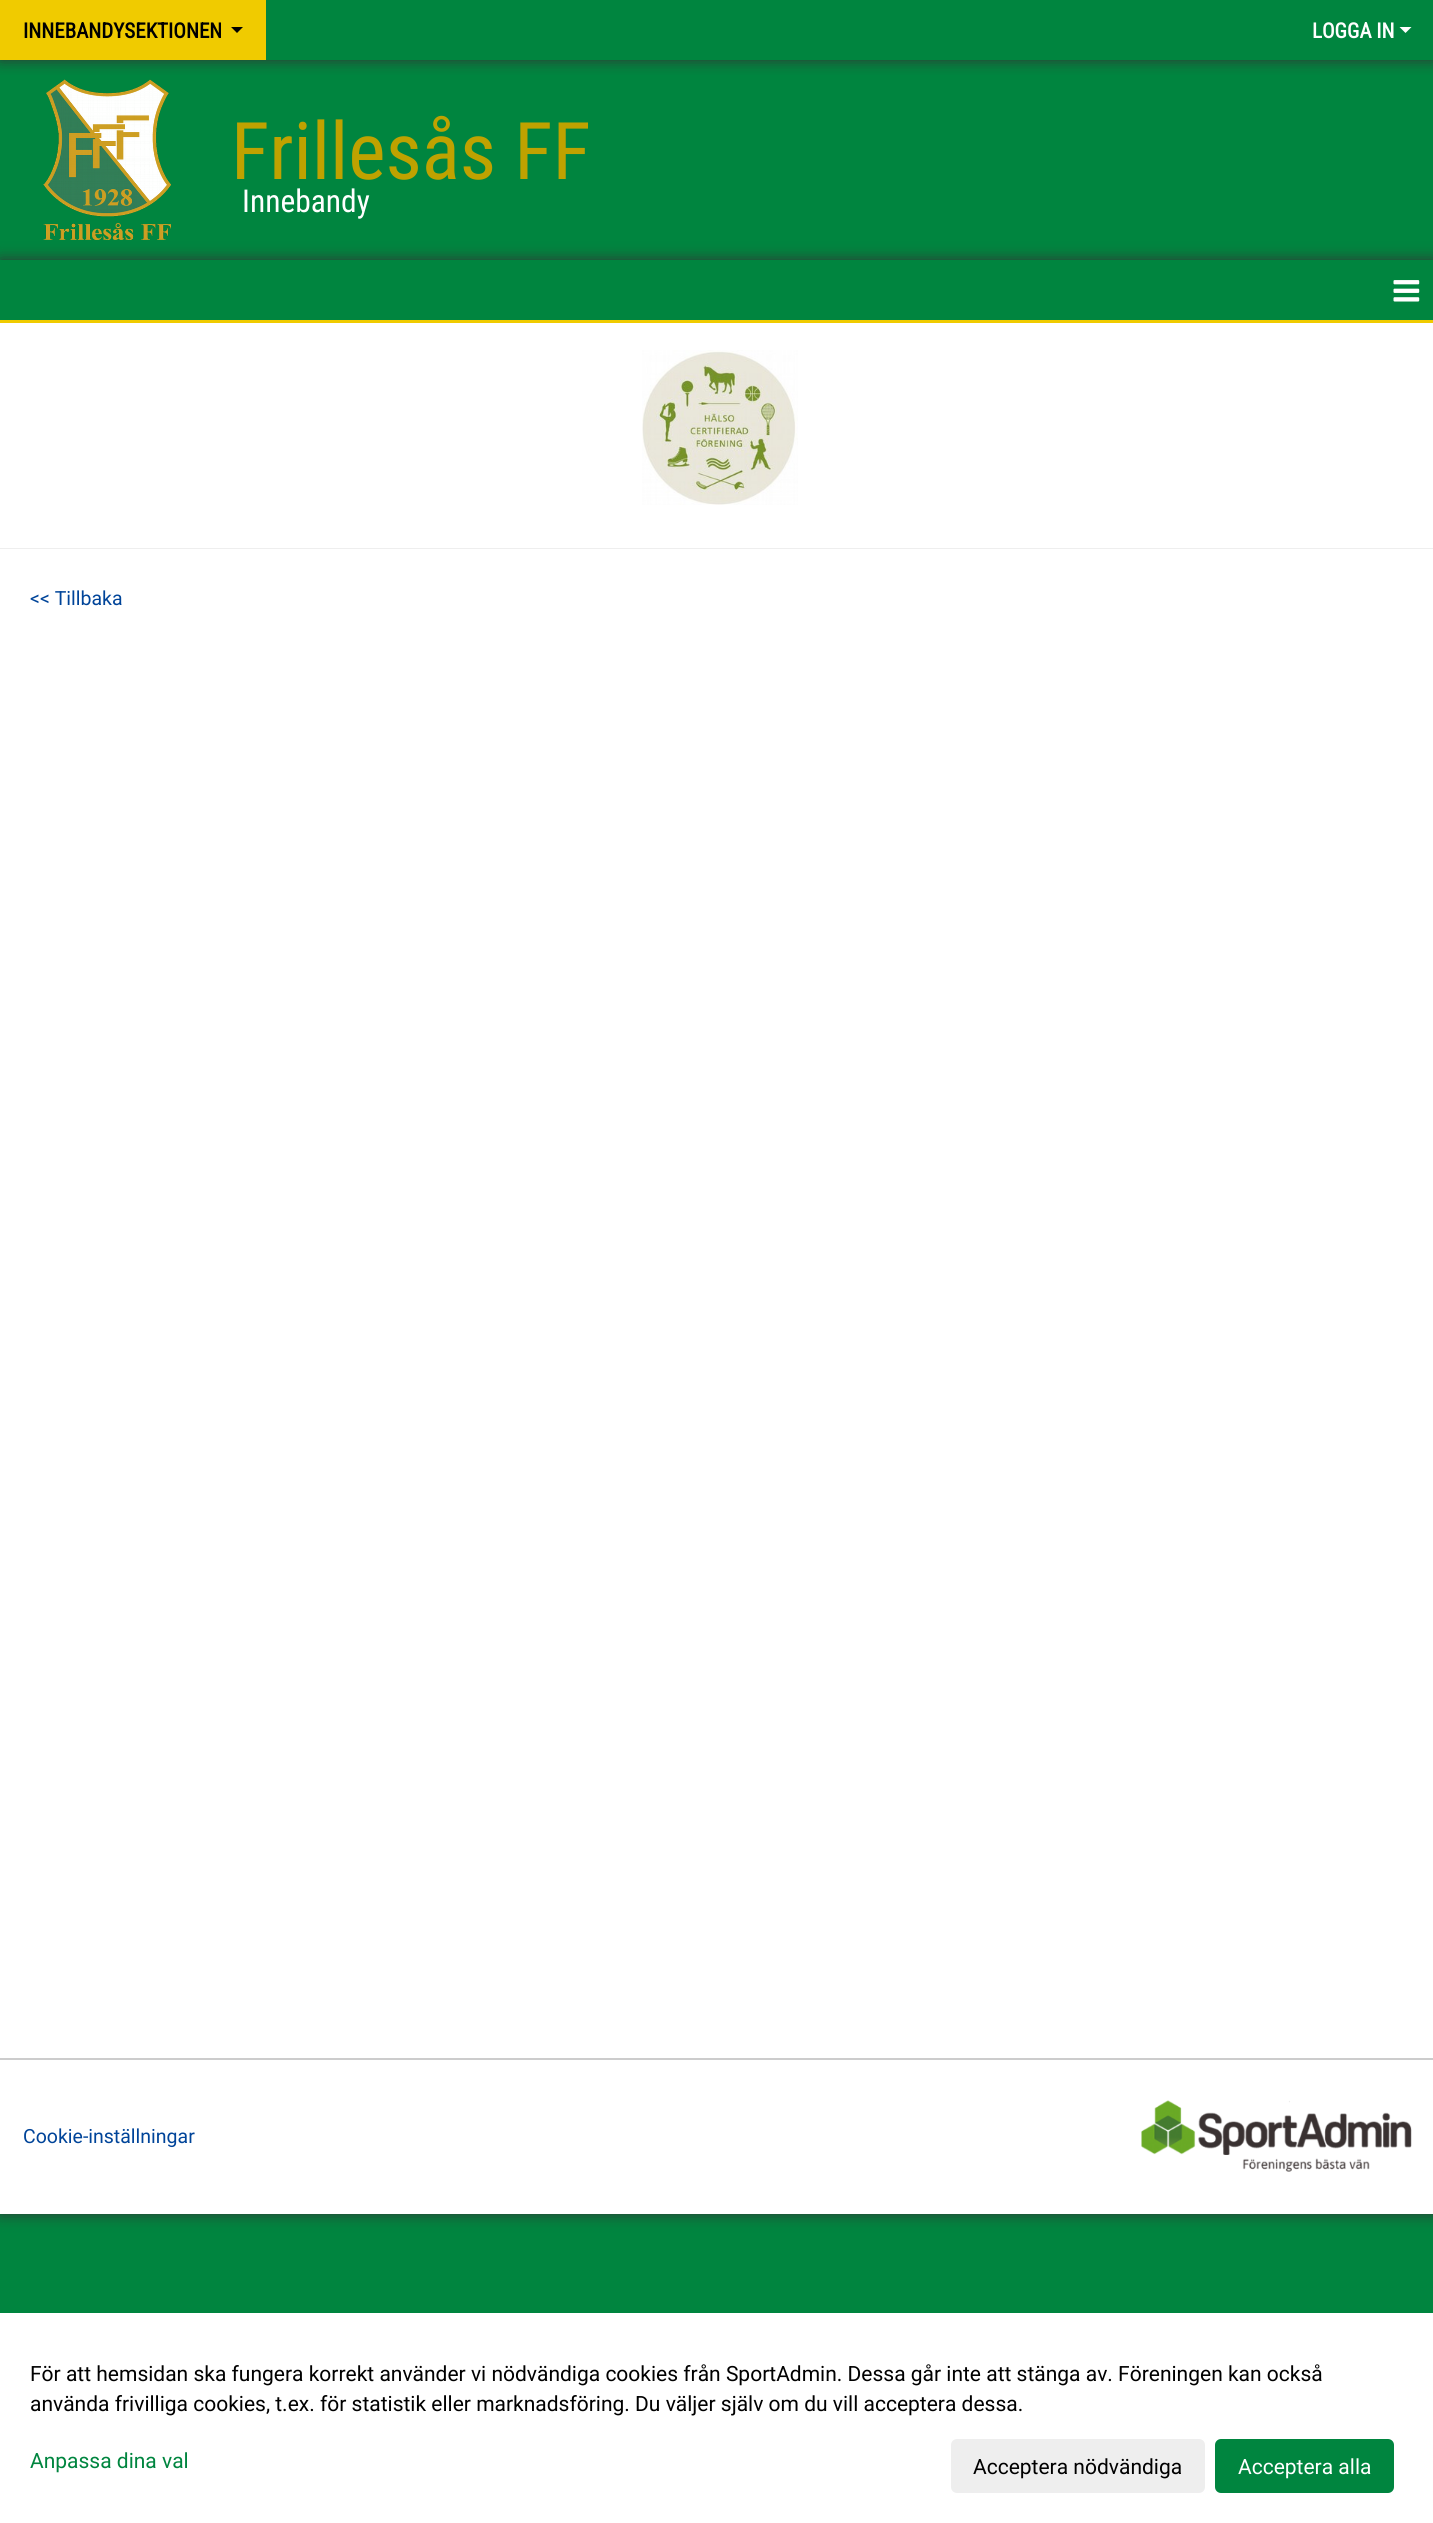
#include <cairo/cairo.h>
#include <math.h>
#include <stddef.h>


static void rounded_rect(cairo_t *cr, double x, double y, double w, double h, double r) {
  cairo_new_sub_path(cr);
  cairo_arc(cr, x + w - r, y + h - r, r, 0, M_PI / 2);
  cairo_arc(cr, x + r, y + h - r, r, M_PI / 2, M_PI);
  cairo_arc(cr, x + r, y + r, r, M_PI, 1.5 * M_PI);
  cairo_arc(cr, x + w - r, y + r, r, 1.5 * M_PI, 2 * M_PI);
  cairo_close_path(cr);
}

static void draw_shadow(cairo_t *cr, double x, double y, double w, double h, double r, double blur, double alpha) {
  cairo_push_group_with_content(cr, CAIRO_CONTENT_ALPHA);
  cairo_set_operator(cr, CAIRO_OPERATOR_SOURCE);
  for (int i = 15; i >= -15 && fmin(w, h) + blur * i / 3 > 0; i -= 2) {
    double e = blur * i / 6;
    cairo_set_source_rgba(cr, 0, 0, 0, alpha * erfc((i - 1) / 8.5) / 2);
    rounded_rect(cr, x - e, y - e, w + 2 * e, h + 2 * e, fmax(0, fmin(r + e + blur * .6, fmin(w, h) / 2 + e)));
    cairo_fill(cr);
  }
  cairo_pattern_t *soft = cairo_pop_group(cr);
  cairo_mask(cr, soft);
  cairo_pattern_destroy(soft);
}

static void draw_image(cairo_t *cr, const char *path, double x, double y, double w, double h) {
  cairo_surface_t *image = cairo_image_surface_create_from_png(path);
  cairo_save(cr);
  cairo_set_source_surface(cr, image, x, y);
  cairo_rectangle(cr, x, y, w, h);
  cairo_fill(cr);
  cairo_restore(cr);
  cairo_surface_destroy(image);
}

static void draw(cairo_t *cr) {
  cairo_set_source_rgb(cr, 0, 133 / 255.0, 63 / 255.0);
  cairo_paint(cr);
  cairo_save(cr);
  cairo_rectangle(cr, 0, 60, 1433, 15);
  cairo_clip(cr);
  cairo_set_source_rgb(cr, 51 / 255.0, 51 / 255.0, 51 / 255.0);
  draw_shadow(cr, 0, 0, 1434, 60, 0, 7.5, 1);
  cairo_restore(cr);
  cairo_set_source_rgb(cr, 240 / 255.0, 203 / 255.0, 0);
  cairo_rectangle(cr, 0, 0, 266, 60);
  cairo_fill(cr);
  cairo_set_source_rgb(cr, 0, 0, 0);
  cairo_new_path(cr);
  cairo_move_to(cr, 231, 27);
  cairo_line_to(cr, 243, 27);
  cairo_line_to(cr, 237, 33);
  cairo_close_path(cr);
  cairo_fill(cr);
  cairo_set_source_rgb(cr, 1, 1, 1);
  cairo_new_path(cr);
  cairo_move_to(cr, 1399.5, 27);
  cairo_line_to(cr, 1411.5, 27);
  cairo_line_to(cr, 1405.5, 33);
  cairo_close_path(cr);
  cairo_fill(cr);
  cairo_set_source_rgb(cr, 51 / 255.0, 51 / 255.0, 51 / 255.0);
  draw_shadow(cr, 0, 260, 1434, 1954, 0, 7.5, 1);
  draw_image(cr, "images/1.png", 43, 79, 128, 161);
  cairo_set_source_rgb(cr, 1, 1, 1);
  cairo_rectangle(cr, 0, 323, 1433, 1735);
  cairo_fill(cr);
  cairo_set_source_rgb(cr, 0, 133 / 255.0, 63 / 255.0);
  cairo_rectangle(cr, 0, 260, 1433, 60);
  cairo_fill(cr);
  cairo_set_source_rgb(cr, 240 / 255.0, 203 / 255.0, 0);
  cairo_rectangle(cr, 0, 320, 1433, 3);
  cairo_fill(cr);
  draw_image(cr, "images/2.png", 1393, 280, 27, 22);
  draw_image(cr, "images/3.png", 642, 350, 156, 155);
  cairo_set_source_rgb(cr, 238 / 255.0, 238 / 255.0, 238 / 255.0);
  cairo_rectangle(cr, 0, 548, 1433, 1);
  cairo_fill(cr);
  cairo_set_source_rgb(cr, 1, 1, 1);
  cairo_rectangle(cr, 0, 2060, 1433, 154);
  cairo_fill(cr);
  cairo_set_source_rgb(cr, 204 / 255.0, 204 / 255.0, 204 / 255.0);
  cairo_rectangle(cr, 0, 2058, 1433, 2);
  cairo_fill(cr);
  draw_image(cr, "images/4.png", 1141, 2100, 271, 72);
  cairo_set_source_rgb(cr, 1, 1, 1);
  cairo_rectangle(cr, 0, 2313, 1433, 210);
  cairo_fill(cr);
  cairo_set_source_rgb(cr, 238 / 255.0, 238 / 255.0, 238 / 255.0);
  rounded_rect(cr, 951, 2439, 254, 54, 6);
  cairo_fill(cr);
  cairo_set_source_rgb(cr, 0, 133 / 255.0, 63 / 255.0);
  rounded_rect(cr, 1215, 2439, 179, 54, 6);
  cairo_fill(cr);
  cairo_select_font_face(cr, "Roboto Condensed", CAIRO_FONT_SLANT_NORMAL, CAIRO_FONT_WEIGHT_BOLD);
  cairo_set_font_size(cr, 21);
  cairo_set_source_rgb(cr, 0, 0, 0);
  cairo_move_to(cr, 23, 38);
  cairo_show_text(cr, "INNEBANDYSEKTIONEN");
  cairo_set_source_rgb(cr, 1, 1, 1);
  cairo_move_to(cr, 1312, 38);
  cairo_show_text(cr, "LOGGA IN");
  cairo_select_font_face(cr, "Roboto Condensed", CAIRO_FONT_SLANT_NORMAL, CAIRO_FONT_WEIGHT_NORMAL);
  cairo_set_font_size(cr, 79.5);
  cairo_set_source_rgb(cr, 191 / 255.0, 162 / 255.0, 0);
  cairo_move_to(cr, 231, 179);
  cairo_show_text(cr, "Frillesås FF");
  cairo_set_font_size(cr, 31.5);
  cairo_set_source_rgb(cr, 1, 1, 1);
  cairo_move_to(cr, 242, 212);
  cairo_show_text(cr, "Innebandy");
  cairo_select_font_face(cr, "Roboto", CAIRO_FONT_SLANT_NORMAL, CAIRO_FONT_WEIGHT_NORMAL);
  cairo_set_font_size(cr, 19.5);
  cairo_set_source_rgb(cr, 0, 68 / 255.0, 153 / 255.0);
  cairo_move_to(cr, 30, 605);
  cairo_show_text(cr, "<< Tillbaka");
  cairo_move_to(cr, 23, 2143);
  cairo_show_text(cr, "Cookie-inställningar");
  cairo_set_font_size(cr, 21);
  cairo_set_source_rgb(cr, 0, 0, 0);
  cairo_move_to(cr, 30, 2381);
  cairo_show_text(cr, "För att hemsidan ska fungera korrekt använder vi nödvändiga cookies från SportAdmin. Dessa går inte att stänga av. Föreningen kan också");
  cairo_move_to(cr, 30, 2411);
  cairo_show_text(cr, "använda frivilliga cookies, t.ex. för statistik eller marknadsföring. Du väljer själv om du vill acceptera dessa.");
  cairo_set_source_rgb(cr, 0, 133 / 255.0, 63 / 255.0);
  cairo_move_to(cr, 30, 2468);
  cairo_show_text(cr, "Anpassa dina val");
  cairo_set_source_rgb(cr, 0, 0, 0);
  cairo_move_to(cr, 973, 2474);
  cairo_show_text(cr, "Acceptera nödvändiga");
  cairo_set_source_rgb(cr, 1, 1, 1);
  cairo_move_to(cr, 1238, 2474);
  cairo_show_text(cr, "Acceptera alla");
}

int main(void) {
  cairo_surface_t *surface = cairo_image_surface_create(CAIRO_FORMAT_RGB24, 1433, 2523);
  cairo_t *cr = cairo_create(surface);
  cairo_font_options_t *options = cairo_font_options_create();
  cairo_font_options_set_hint_metrics(options, CAIRO_HINT_METRICS_OFF);
  cairo_font_options_set_hint_style(options, CAIRO_HINT_STYLE_NONE);
  cairo_set_font_options(cr, options);
  cairo_set_miter_limit(cr, 4);
  draw(cr);
  cairo_surface_write_to_png(surface, "out.png");
  cairo_font_options_destroy(options);
  cairo_destroy(cr);
  cairo_surface_destroy(surface);
  return 0;
}
